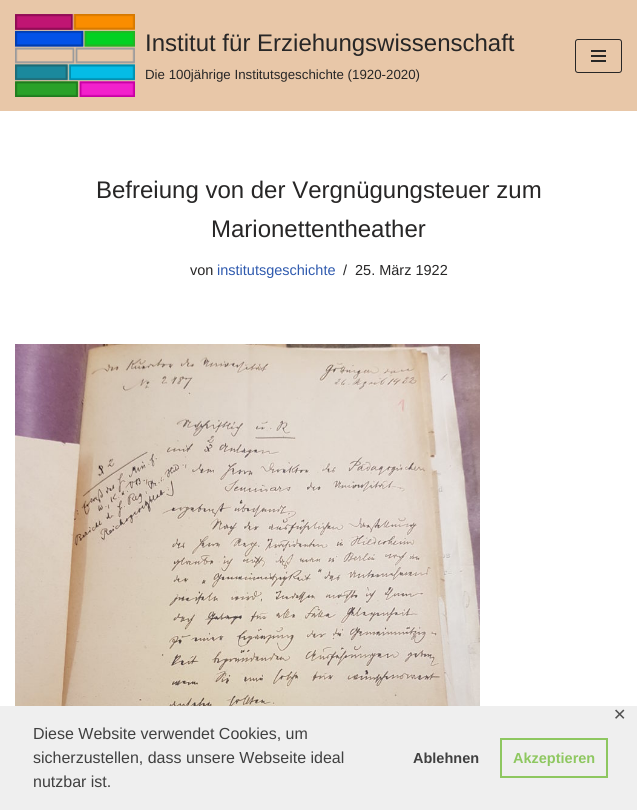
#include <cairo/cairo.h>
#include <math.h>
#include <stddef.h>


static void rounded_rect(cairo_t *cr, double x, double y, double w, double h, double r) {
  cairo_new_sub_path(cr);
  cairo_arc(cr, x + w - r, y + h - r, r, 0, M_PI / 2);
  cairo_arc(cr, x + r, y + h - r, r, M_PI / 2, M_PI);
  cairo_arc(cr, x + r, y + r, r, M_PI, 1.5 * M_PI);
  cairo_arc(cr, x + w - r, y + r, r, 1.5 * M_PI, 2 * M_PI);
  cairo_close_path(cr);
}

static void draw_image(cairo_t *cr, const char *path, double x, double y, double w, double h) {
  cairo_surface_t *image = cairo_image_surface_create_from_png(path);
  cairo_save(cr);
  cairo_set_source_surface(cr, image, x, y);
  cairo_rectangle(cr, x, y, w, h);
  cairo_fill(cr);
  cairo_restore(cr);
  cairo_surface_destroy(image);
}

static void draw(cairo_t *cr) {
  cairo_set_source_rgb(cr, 1, 1, 1);
  cairo_paint(cr);
  cairo_set_source_rgb(cr, 232 / 255.0, 199 / 255.0, 168 / 255.0);
  cairo_rectangle(cr, 0, 0, 637, 111);
  cairo_fill(cr);
  draw_image(cr, "images/1.png", 15, 14, 120, 83);
  rounded_rect(cr, 575.5, 39.5, 46, 33, 2.5);
  cairo_set_source_rgb(cr, 39 / 255.0, 38 / 255.0, 38 / 255.0);
  cairo_set_line_width(cr, 1);
  cairo_stroke(cr);
  cairo_rectangle(cr, 591, 50, 15, 2);
  cairo_fill(cr);
  cairo_rectangle(cr, 591, 55, 15, 2);
  cairo_fill(cr);
  cairo_rectangle(cr, 591, 60, 15, 2);
  cairo_fill(cr);
  draw_image(cr, "images/2.png", 15, 344, 465, 362);
  cairo_set_source_rgb(cr, 239 / 255.0, 239 / 255.0, 239 / 255.0);
  cairo_rectangle(cr, 0, 706, 637, 104);
  cairo_fill(cr);
  cairo_rectangle(cr, 501, 739, 106, 38);
  cairo_set_source_rgb(cr, 142 / 255.0, 199 / 255.0, 96 / 255.0);
  cairo_set_line_width(cr, 2);
  cairo_stroke(cr);
  cairo_select_font_face(cr, "Liberation Sans", CAIRO_FONT_SLANT_NORMAL, CAIRO_FONT_WEIGHT_NORMAL);
  cairo_set_font_size(cr, 24);
  cairo_set_source_rgb(cr, 39 / 255.0, 38 / 255.0, 38 / 255.0);
  cairo_move_to(cr, 145, 51);
  cairo_show_text(cr, "Institut für Erziehungswissenschaft");
  cairo_set_font_size(cr, 13.3);
  cairo_move_to(cr, 145, 79);
  cairo_show_text(cr, "Die 100jährige Institutsgeschichte (1920-2020)");
  cairo_set_font_size(cr, 24);
  cairo_move_to(cr, 96, 198);
  cairo_show_text(cr, "Befreiung von der Vergnügungsteuer zum");
  cairo_move_to(cr, 211, 237);
  cairo_show_text(cr, "Marionettentheather");
  cairo_set_font_size(cr, 14.5);
  cairo_move_to(cr, 190, 275);
  cairo_show_text(cr, "von");
  cairo_set_source_rgb(cr, 47 / 255.0, 90 / 255.0, 174 / 255.0);
  cairo_move_to(cr, 217, 275);
  cairo_show_text(cr, "institutsgeschichte");
  cairo_set_source_rgb(cr, 39 / 255.0, 38 / 255.0, 38 / 255.0);
  cairo_move_to(cr, 343, 275);
  cairo_show_text(cr, "/");
  cairo_move_to(cr, 355, 275);
  cairo_show_text(cr, "25. März 1922");
  cairo_select_font_face(cr, "DejaVu Sans", CAIRO_FONT_SLANT_NORMAL, CAIRO_FONT_WEIGHT_NORMAL);
  cairo_set_font_size(cr, 16);
  cairo_set_source_rgb(cr, 82 / 255.0, 82 / 255.0, 82 / 255.0);
  cairo_move_to(cr, 613, 720);
  cairo_show_text(cr, "✕");
  cairo_select_font_face(cr, "Liberation Sans", CAIRO_FONT_SLANT_NORMAL, CAIRO_FONT_WEIGHT_NORMAL);
  cairo_set_source_rgb(cr, 64 / 255.0, 64 / 255.0, 64 / 255.0);
  cairo_move_to(cr, 33, 739);
  cairo_show_text(cr, "Diese Website verwendet Cookies, um");
  cairo_move_to(cr, 33, 763);
  cairo_show_text(cr, "sicherzustellen, dass unsere Webseite ideal");
  cairo_move_to(cr, 33, 787);
  cairo_show_text(cr, "nutzbar ist.");
  cairo_select_font_face(cr, "Liberation Sans", CAIRO_FONT_SLANT_NORMAL, CAIRO_FONT_WEIGHT_BOLD);
  cairo_set_font_size(cr, 14.5);
  cairo_move_to(cr, 413, 763);
  cairo_show_text(cr, "Ablehnen");
  cairo_set_source_rgb(cr, 142 / 255.0, 199 / 255.0, 96 / 255.0);
  cairo_move_to(cr, 513, 763);
  cairo_show_text(cr, "Akzeptieren");
}

int main(void) {
  cairo_surface_t *surface = cairo_image_surface_create(CAIRO_FORMAT_RGB24, 637, 810);
  cairo_t *cr = cairo_create(surface);
  cairo_font_options_t *options = cairo_font_options_create();
  cairo_font_options_set_hint_metrics(options, CAIRO_HINT_METRICS_OFF);
  cairo_font_options_set_hint_style(options, CAIRO_HINT_STYLE_NONE);
  cairo_set_font_options(cr, options);
  cairo_set_miter_limit(cr, 4);
  draw(cr);
  cairo_surface_write_to_png(surface, "out.png");
  cairo_font_options_destroy(options);
  cairo_destroy(cr);
  cairo_surface_destroy(surface);
  return 0;
}
